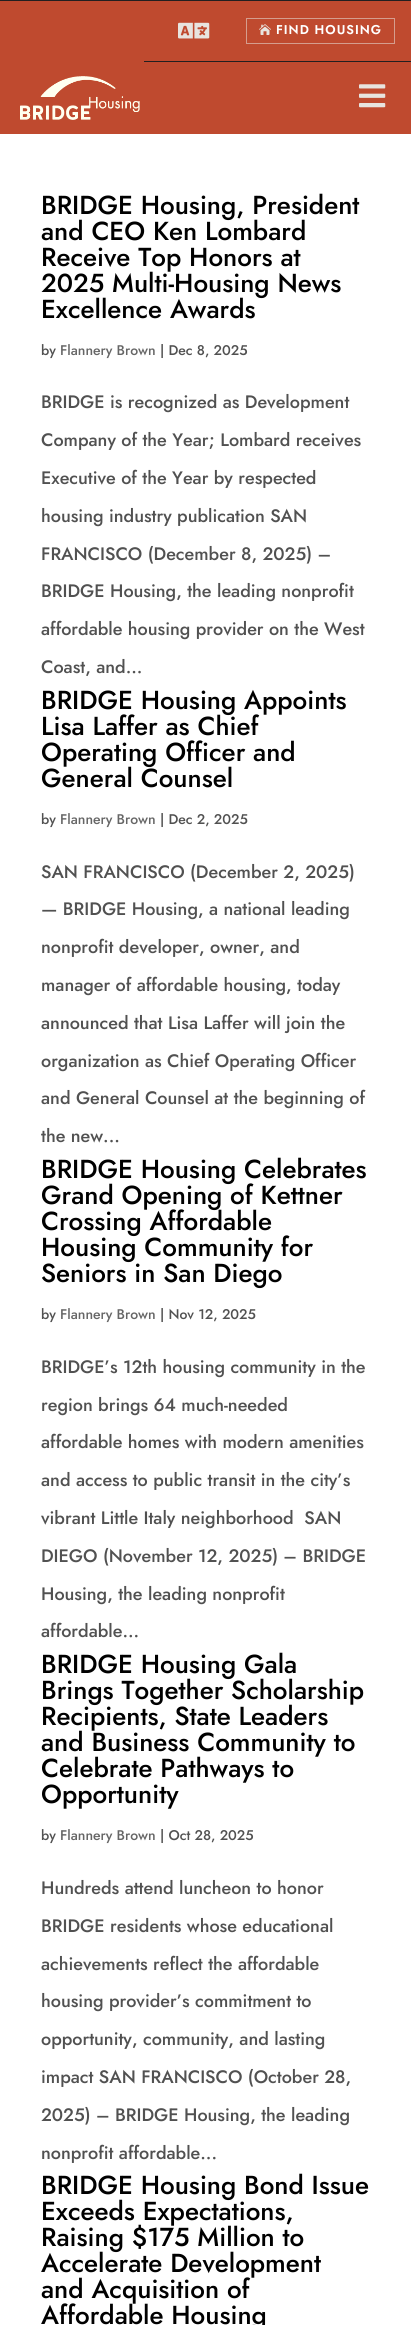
#include <cairo/cairo.h>
#include <math.h>
#include <stddef.h>


static void draw_spaced(cairo_t *cr, double x, double y, const char *s, double letter, double word) {
  cairo_move_to(cr, x, y);
  while (*s) {
    char ch[5] = {0};
    int n = 0;
    do ch[n++] = *s++; while ((*s & 0xC0) == 0x80);
    cairo_show_text(cr, ch);
    cairo_rel_move_to(cr, letter + word * (*ch == ' '), 0);
  }
}

static void draw_image(cairo_t *cr, const char *path, double x, double y, double w, double h) {
  cairo_surface_t *image = cairo_image_surface_create_from_png(path);
  cairo_save(cr);
  cairo_set_source_surface(cr, image, x, y);
  cairo_rectangle(cr, x, y, w, h);
  cairo_fill(cr);
  cairo_restore(cr);
  cairo_surface_destroy(image);
}

static void draw(cairo_t *cr) {
  cairo_set_source_rgb(cr, 191 / 255.0, 74 / 255.0, 47 / 255.0);
  cairo_paint(cr);
  cairo_set_source_rgb(cr, 35 / 255.0, 31 / 255.0, 32 / 255.0);
  cairo_rectangle(cr, 0, 0, 411, 1);
  cairo_fill(cr);
  draw_image(cr, "images/1.png", 178, 22, 32, 17);
  cairo_rectangle(cr, 246.5, 18.5, 148, 25);
  cairo_set_source_rgb(cr, 213 / 255.0, 157 / 255.0, 142 / 255.0);
  cairo_set_line_width(cr, 1);
  cairo_stroke(cr);
  draw_image(cr, "images/2.png", 259, 24, 12, 11);
  cairo_set_source_rgb(cr, 35 / 255.0, 31 / 255.0, 32 / 255.0);
  cairo_rectangle(cr, 144, 61, 267, 1);
  cairo_fill(cr);
  draw_image(cr, "images/3.png", 20, 76, 120, 44);
  draw_image(cr, "images/4.png", 359, 84, 27, 24);
  cairo_set_source_rgb(cr, 1, 1, 1);
  cairo_rectangle(cr, 0, 134, 411, 2191);
  cairo_fill(cr);
  cairo_select_font_face(cr, "Jost SemiBold", CAIRO_FONT_SLANT_NORMAL, CAIRO_FONT_WEIGHT_NORMAL);
  cairo_set_font_size(cr, 12.75);
  draw_spaced(cr, 276, 34, "FIND HOUSING", 1, 0);
  cairo_select_font_face(cr, "Jost Medium", CAIRO_FONT_SLANT_NORMAL, CAIRO_FONT_WEIGHT_NORMAL);
  cairo_set_font_size(cr, 26);
  cairo_set_source_rgb(cr, 0, 0, 0);
  cairo_move_to(cr, 41, 214);
  cairo_show_text(cr, "BRIDGE Housing, President");
  cairo_move_to(cr, 41, 240);
  cairo_show_text(cr, "and CEO Ken Lombard");
  cairo_move_to(cr, 41, 266);
  cairo_show_text(cr, "Receive Top Honors at");
  cairo_move_to(cr, 41, 292);
  cairo_show_text(cr, "2025 Multi-Housing News");
  cairo_move_to(cr, 41, 318);
  cairo_show_text(cr, "Excellence Awards");
  cairo_set_font_size(cr, 14);
  cairo_set_source_rgb(cr, 81 / 255.0, 81 / 255.0, 81 / 255.0);
  cairo_move_to(cr, 41, 355);
  cairo_show_text(cr, "by");
  cairo_set_source_rgb(cr, 102 / 255.0, 102 / 255.0, 102 / 255.0);
  cairo_move_to(cr, 60, 355);
  cairo_show_text(cr, "Flannery Brown");
  cairo_set_source_rgb(cr, 81 / 255.0, 81 / 255.0, 81 / 255.0);
  cairo_move_to(cr, 160, 355);
  cairo_show_text(cr, "| Dec 8, 2025");
  cairo_set_font_size(cr, 18);
  cairo_move_to(cr, 41, 408);
  cairo_show_text(cr, "BRIDGE is recognized as Development");
  cairo_move_to(cr, 41, 446);
  cairo_show_text(cr, "Company of the Year; Lombard receives");
  cairo_move_to(cr, 41, 484);
  cairo_show_text(cr, "Executive of the Year by respected");
  cairo_move_to(cr, 41, 522);
  cairo_show_text(cr, "housing industry publication SAN");
  cairo_move_to(cr, 41, 560);
  cairo_show_text(cr, "FRANCISCO (December 8, 2025) –");
  cairo_move_to(cr, 41, 597);
  cairo_show_text(cr, "BRIDGE Housing, the leading nonprofit");
  cairo_move_to(cr, 41, 635);
  cairo_show_text(cr, "affordable housing provider on the West");
  cairo_move_to(cr, 41, 673);
  cairo_show_text(cr, "Coast, and...");
  cairo_set_font_size(cr, 26);
  cairo_set_source_rgb(cr, 0, 0, 0);
  cairo_move_to(cr, 41, 709);
  cairo_show_text(cr, "BRIDGE Housing Appoints");
  cairo_move_to(cr, 41, 735);
  cairo_show_text(cr, "Lisa Laffer as Chief");
  cairo_move_to(cr, 41, 761);
  cairo_show_text(cr, "Operating Officer and");
  cairo_move_to(cr, 41, 787);
  cairo_show_text(cr, "General Counsel");
  cairo_set_font_size(cr, 14);
  cairo_set_source_rgb(cr, 81 / 255.0, 81 / 255.0, 81 / 255.0);
  cairo_move_to(cr, 41, 824);
  cairo_show_text(cr, "by");
  cairo_set_source_rgb(cr, 102 / 255.0, 102 / 255.0, 102 / 255.0);
  cairo_move_to(cr, 60, 824);
  cairo_show_text(cr, "Flannery Brown");
  cairo_set_source_rgb(cr, 81 / 255.0, 81 / 255.0, 81 / 255.0);
  cairo_move_to(cr, 160, 824);
  cairo_show_text(cr, "| Dec 2, 2025");
  cairo_set_font_size(cr, 18);
  cairo_move_to(cr, 41, 878);
  cairo_show_text(cr, "SAN FRANCISCO (December 2, 2025)");
  cairo_move_to(cr, 41, 915);
  cairo_show_text(cr, "— BRIDGE Housing, a national leading");
  cairo_move_to(cr, 41, 953);
  cairo_show_text(cr, "nonprofit developer, owner, and");
  cairo_move_to(cr, 41, 991);
  cairo_show_text(cr, "manager of affordable housing, today");
  cairo_move_to(cr, 41, 1029);
  cairo_show_text(cr, "announced that Lisa Laffer will join the");
  cairo_move_to(cr, 41, 1067);
  cairo_show_text(cr, "organization as Chief Operating Officer");
  cairo_move_to(cr, 41, 1104);
  cairo_show_text(cr, "and General Counsel at the beginning of");
  cairo_move_to(cr, 41, 1142);
  cairo_show_text(cr, "the new...");
  cairo_set_font_size(cr, 26);
  cairo_set_source_rgb(cr, 0, 0, 0);
  cairo_move_to(cr, 41, 1178);
  cairo_show_text(cr, "BRIDGE Housing Celebrates");
  cairo_move_to(cr, 41, 1204);
  cairo_show_text(cr, "Grand Opening of Kettner");
  cairo_move_to(cr, 41, 1230);
  cairo_show_text(cr, "Crossing Affordable");
  cairo_move_to(cr, 41, 1256);
  cairo_show_text(cr, "Housing Community for");
  cairo_move_to(cr, 41, 1282);
  cairo_show_text(cr, "Seniors in San Diego");
  cairo_set_font_size(cr, 14);
  cairo_set_source_rgb(cr, 81 / 255.0, 81 / 255.0, 81 / 255.0);
  cairo_move_to(cr, 41, 1319);
  cairo_show_text(cr, "by");
  cairo_set_source_rgb(cr, 102 / 255.0, 102 / 255.0, 102 / 255.0);
  cairo_move_to(cr, 60, 1319);
  cairo_show_text(cr, "Flannery Brown");
  cairo_set_source_rgb(cr, 81 / 255.0, 81 / 255.0, 81 / 255.0);
  cairo_move_to(cr, 160, 1319);
  cairo_show_text(cr, "| Nov 12, 2025");
  cairo_set_font_size(cr, 18);
  cairo_move_to(cr, 41, 1373);
  cairo_show_text(cr, "BRIDGE’s 12th housing community in the");
  cairo_move_to(cr, 41, 1411);
  cairo_show_text(cr, "region brings 64 much-needed");
  cairo_move_to(cr, 41, 1448);
  cairo_show_text(cr, "affordable homes with modern amenities");
  cairo_move_to(cr, 41, 1486);
  cairo_show_text(cr, "and access to public transit in the city’s");
  cairo_move_to(cr, 41, 1524);
  cairo_show_text(cr, "vibrant Little Italy neighborhood  SAN");
  cairo_move_to(cr, 41, 1562);
  cairo_show_text(cr, "DIEGO (November 12, 2025) – BRIDGE");
  cairo_move_to(cr, 41, 1600);
  cairo_show_text(cr, "Housing, the leading nonprofit");
  cairo_move_to(cr, 41, 1637);
  cairo_show_text(cr, "affordable...");
  cairo_set_font_size(cr, 26);
  cairo_set_source_rgb(cr, 0, 0, 0);
  cairo_move_to(cr, 41, 1673);
  cairo_show_text(cr, "BRIDGE Housing Gala");
  cairo_move_to(cr, 41, 1699);
  cairo_show_text(cr, "Brings Together Scholarship");
  cairo_move_to(cr, 41, 1725);
  cairo_show_text(cr, "Recipients, State Leaders");
  cairo_move_to(cr, 41, 1751);
  cairo_show_text(cr, "and Business Community to");
  cairo_move_to(cr, 41, 1777);
  cairo_show_text(cr, "Celebrate Pathways to");
  cairo_move_to(cr, 41, 1803);
  cairo_show_text(cr, "Opportunity");
  cairo_set_font_size(cr, 14);
  cairo_set_source_rgb(cr, 81 / 255.0, 81 / 255.0, 81 / 255.0);
  cairo_move_to(cr, 41, 1840);
  cairo_show_text(cr, "by");
  cairo_set_source_rgb(cr, 102 / 255.0, 102 / 255.0, 102 / 255.0);
  cairo_move_to(cr, 60, 1840);
  cairo_show_text(cr, "Flannery Brown");
  cairo_set_source_rgb(cr, 81 / 255.0, 81 / 255.0, 81 / 255.0);
  cairo_move_to(cr, 160, 1840);
  cairo_show_text(cr, "| Oct 28, 2025");
  cairo_set_font_size(cr, 18);
  cairo_move_to(cr, 41, 1894);
  cairo_show_text(cr, "Hundreds attend luncheon to honor");
  cairo_move_to(cr, 41, 1932);
  cairo_show_text(cr, "BRIDGE residents whose educational");
  cairo_move_to(cr, 41, 1970);
  cairo_show_text(cr, "achievements reflect the affordable");
  cairo_move_to(cr, 41, 2007);
  cairo_show_text(cr, "housing provider’s commitment to");
  cairo_move_to(cr, 41, 2045);
  cairo_show_text(cr, "opportunity, community, and lasting");
  cairo_move_to(cr, 41, 2083);
  cairo_show_text(cr, "impact SAN FRANCISCO (October 28,");
  cairo_move_to(cr, 41, 2121);
  cairo_show_text(cr, "2025) – BRIDGE Housing, the leading");
  cairo_move_to(cr, 41, 2159);
  cairo_show_text(cr, "nonprofit affordable...");
  cairo_set_font_size(cr, 26);
  cairo_set_source_rgb(cr, 0, 0, 0);
  cairo_move_to(cr, 41, 2194);
  cairo_show_text(cr, "BRIDGE Housing Bond Issue");
  cairo_move_to(cr, 41, 2220);
  cairo_show_text(cr, "Exceeds Expectations,");
  cairo_move_to(cr, 41, 2246);
  cairo_show_text(cr, "Raising $175 Million to");
  cairo_move_to(cr, 41, 2272);
  cairo_show_text(cr, "Accelerate Development");
  cairo_move_to(cr, 41, 2298);
  cairo_show_text(cr, "and Acquisition of");
  cairo_move_to(cr, 41, 2324);
  cairo_show_text(cr, "Affordable Housing");
}

int main(void) {
  cairo_surface_t *surface = cairo_image_surface_create(CAIRO_FORMAT_RGB24, 411, 2325);
  cairo_t *cr = cairo_create(surface);
  cairo_font_options_t *options = cairo_font_options_create();
  cairo_font_options_set_hint_metrics(options, CAIRO_HINT_METRICS_OFF);
  cairo_font_options_set_hint_style(options, CAIRO_HINT_STYLE_NONE);
  cairo_set_font_options(cr, options);
  cairo_set_miter_limit(cr, 4);
  draw(cr);
  cairo_surface_write_to_png(surface, "out.png");
  cairo_font_options_destroy(options);
  cairo_destroy(cr);
  cairo_surface_destroy(surface);
  return 0;
}
